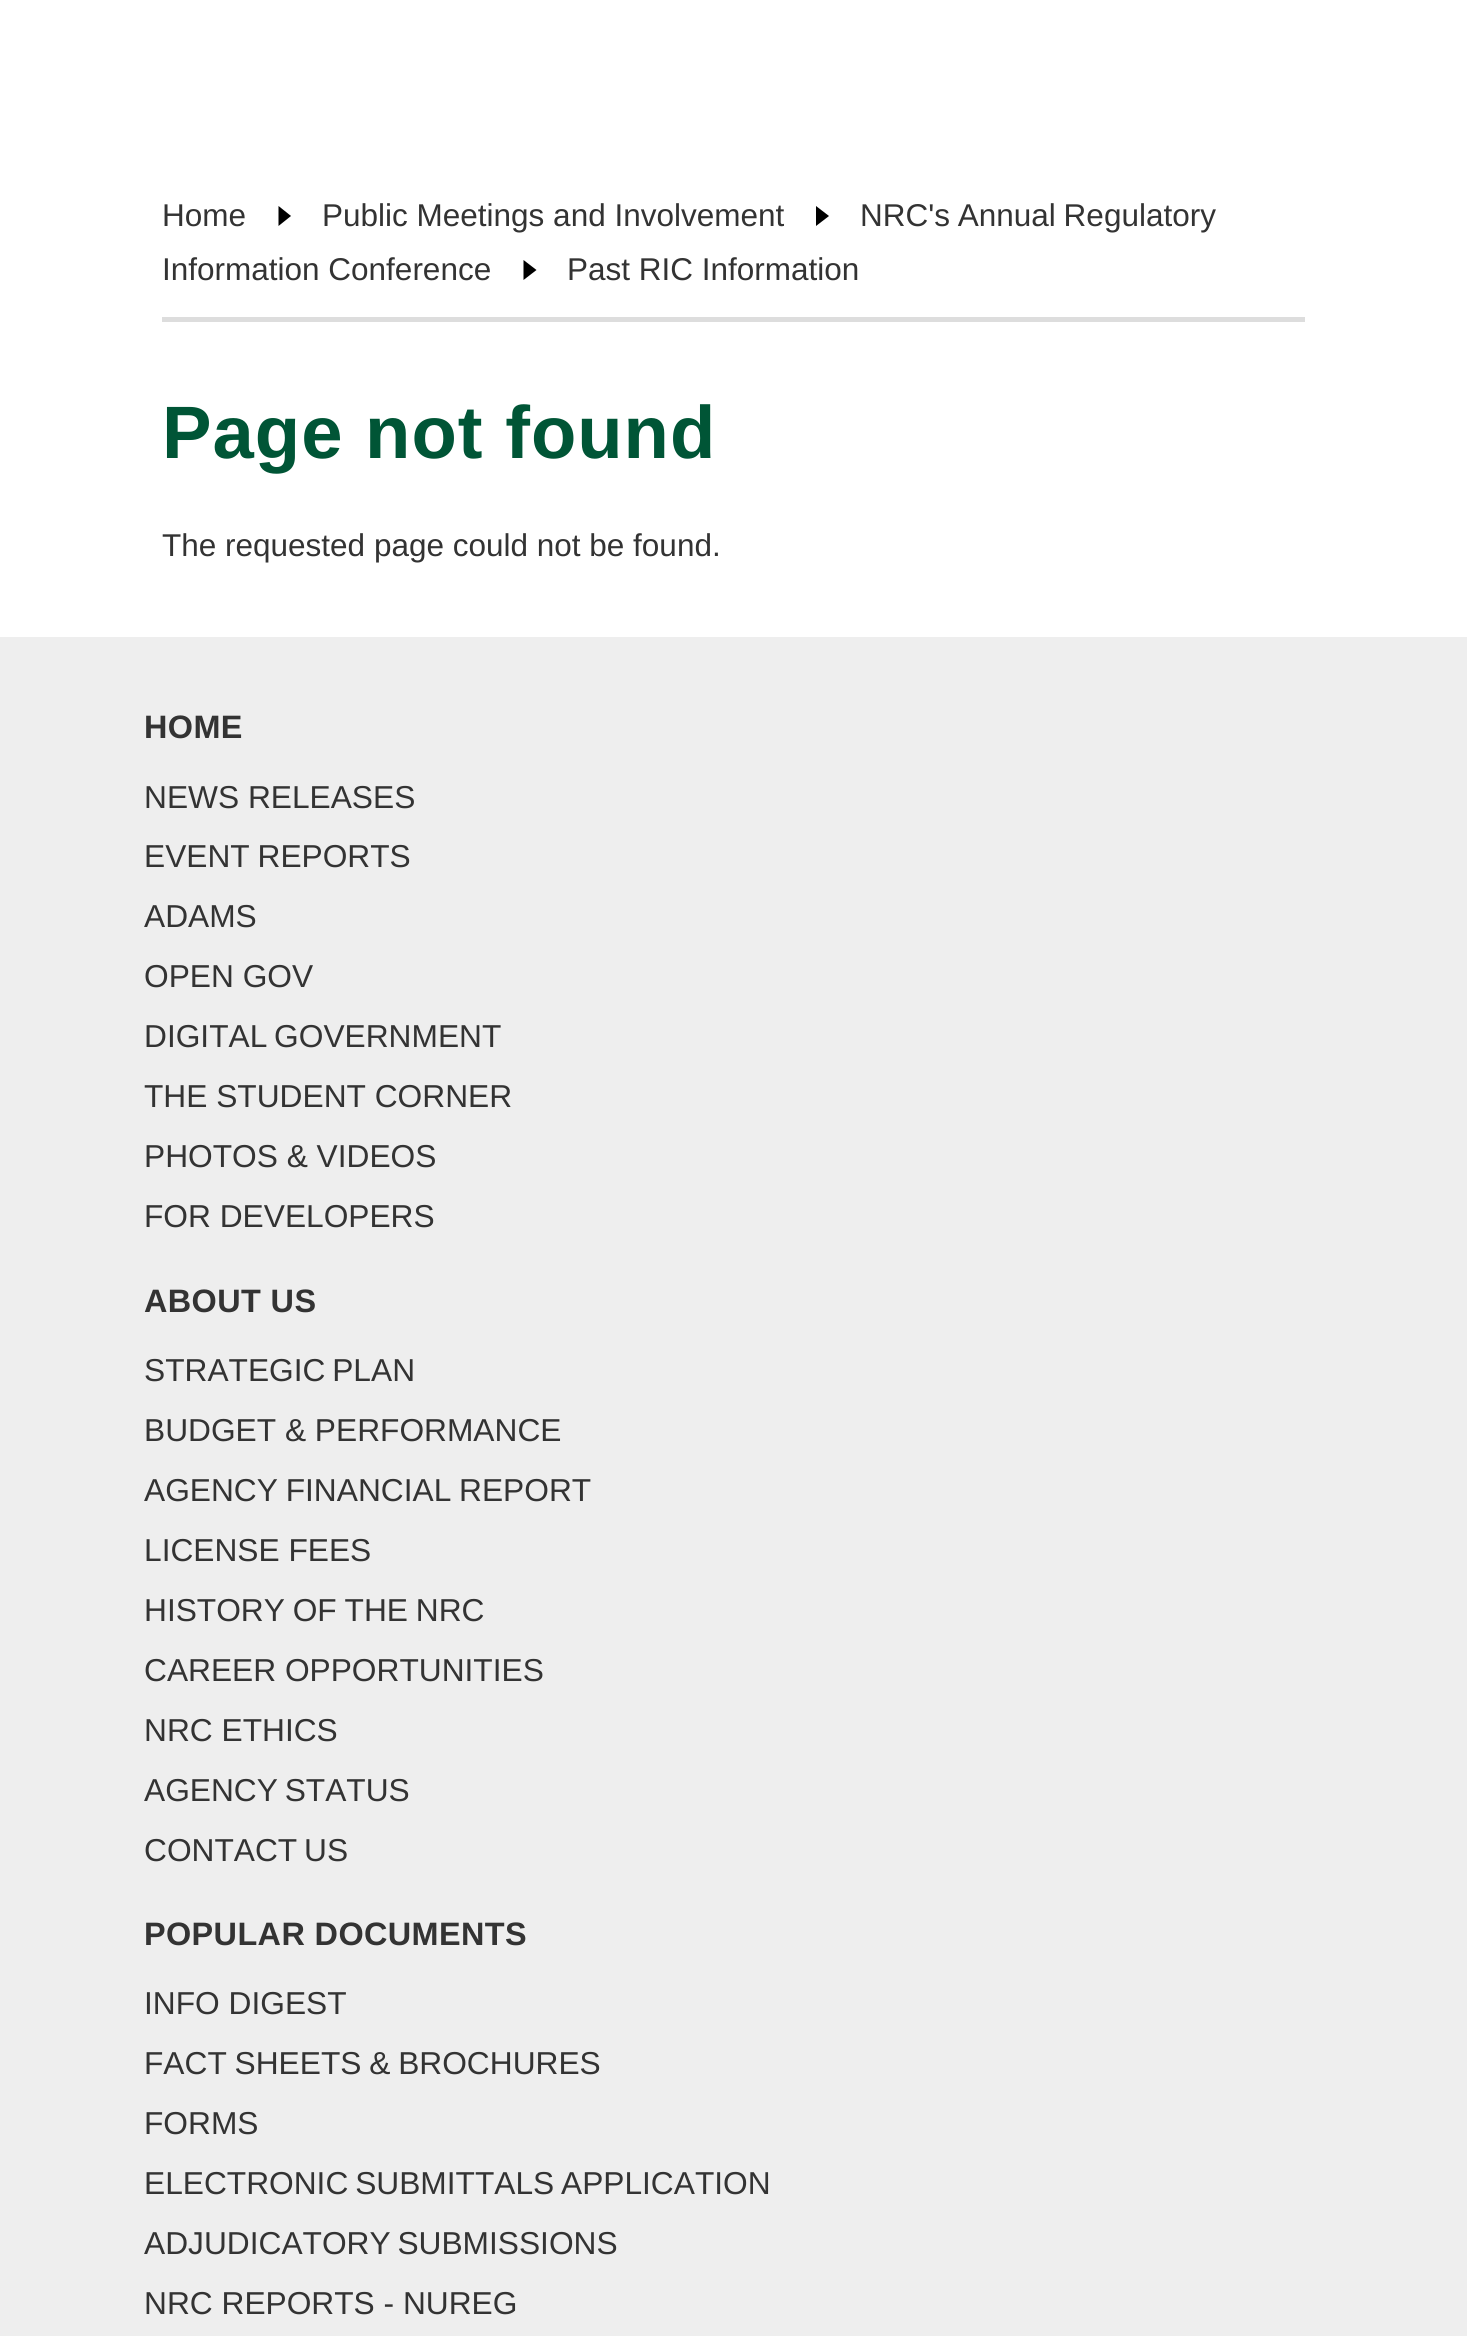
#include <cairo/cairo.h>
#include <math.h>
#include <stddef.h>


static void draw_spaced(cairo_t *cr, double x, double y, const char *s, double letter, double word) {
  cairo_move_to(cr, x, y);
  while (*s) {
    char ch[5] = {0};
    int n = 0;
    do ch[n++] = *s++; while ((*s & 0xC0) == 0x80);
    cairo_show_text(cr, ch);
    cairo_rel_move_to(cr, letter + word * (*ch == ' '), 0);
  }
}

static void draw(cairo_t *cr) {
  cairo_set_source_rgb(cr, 1, 1, 1);
  cairo_paint(cr);
  cairo_set_source_rgb(cr, 221 / 255.0, 221 / 255.0, 221 / 255.0);
  cairo_rectangle(cr, 162, 317, 1143, 5);
  cairo_fill(cr);
  cairo_set_source_rgb(cr, 0, 0, 0);
  cairo_new_path(cr);
  cairo_move_to(cr, 816, 206);
  cairo_line_to(cr, 829, 216);
  cairo_line_to(cr, 816, 226);
  cairo_close_path(cr);
  cairo_fill(cr);
  cairo_new_path(cr);
  cairo_move_to(cr, 278.5, 206);
  cairo_line_to(cr, 291, 216);
  cairo_line_to(cr, 278.5, 226);
  cairo_close_path(cr);
  cairo_fill(cr);
  cairo_new_path(cr);
  cairo_move_to(cr, 523.5, 260);
  cairo_line_to(cr, 536.5, 270);
  cairo_line_to(cr, 523.5, 280);
  cairo_close_path(cr);
  cairo_fill(cr);
  cairo_set_source_rgb(cr, 238 / 255.0, 238 / 255.0, 238 / 255.0);
  cairo_rectangle(cr, 0, 637, 1467, 1699);
  cairo_fill(cr);
  cairo_select_font_face(cr, "Liberation Sans", CAIRO_FONT_SLANT_NORMAL, CAIRO_FONT_WEIGHT_NORMAL);
  cairo_set_font_size(cr, 31.5);
  cairo_set_source_rgb(cr, 51 / 255.0, 51 / 255.0, 51 / 255.0);
  draw_spaced(cr, 860, 226, "NRC's Annual Regulatory", 0, -1);
  cairo_move_to(cr, 162, 280);
  cairo_show_text(cr, "Information Conference");
  cairo_move_to(cr, 162, 226);
  cairo_show_text(cr, "Home");
  cairo_move_to(cr, 322, 226);
  cairo_show_text(cr, "Public Meetings and Involvement");
  cairo_move_to(cr, 567, 280);
  cairo_show_text(cr, "Past RIC Information");
  cairo_select_font_face(cr, "Liberation Sans", CAIRO_FONT_SLANT_NORMAL, CAIRO_FONT_WEIGHT_BOLD);
  cairo_set_font_size(cr, 74.25);
  cairo_set_source_rgb(cr, 0, 85 / 255.0, 54 / 255.0);
  draw_spaced(cr, 162, 458, "Page not found", 1, 0);
  cairo_select_font_face(cr, "Liberation Sans", CAIRO_FONT_SLANT_NORMAL, CAIRO_FONT_WEIGHT_NORMAL);
  cairo_set_font_size(cr, 31.5);
  cairo_set_source_rgb(cr, 51 / 255.0, 51 / 255.0, 51 / 255.0);
  cairo_move_to(cr, 162, 556);
  cairo_show_text(cr, "The requested page could not be found.");
  cairo_select_font_face(cr, "Liberation Sans", CAIRO_FONT_SLANT_NORMAL, CAIRO_FONT_WEIGHT_BOLD);
  cairo_set_font_size(cr, 32.4);
  draw_spaced(cr, 144, 738, "HOME", 0.4, 0);
  cairo_select_font_face(cr, "Liberation Sans", CAIRO_FONT_SLANT_NORMAL, CAIRO_FONT_WEIGHT_NORMAL);
  cairo_set_font_size(cr, 31.7);
  cairo_move_to(cr, 144, 808);
  cairo_show_text(cr, "NEWS RELEASES");
  draw_spaced(cr, 144, 867, "EVENT REPORTS", 0, -1);
  cairo_move_to(cr, 144, 927);
  cairo_show_text(cr, "ADAMS");
  cairo_move_to(cr, 144, 987);
  cairo_show_text(cr, "OPEN GOV");
  draw_spaced(cr, 144, 1047, "DIGITAL GOVERNMENT", 0, -2);
  cairo_move_to(cr, 144, 1107);
  cairo_show_text(cr, "THE STUDENT CORNER");
  cairo_move_to(cr, 144, 1167);
  cairo_show_text(cr, "PHOTOS & VIDEOS");
  cairo_move_to(cr, 144, 1227);
  cairo_show_text(cr, "FOR DEVELOPERS");
  cairo_select_font_face(cr, "Liberation Sans", CAIRO_FONT_SLANT_NORMAL, CAIRO_FONT_WEIGHT_BOLD);
  cairo_set_font_size(cr, 32.4);
  draw_spaced(cr, 144, 1312, "ABOUT US", 0.4, 0);
  cairo_select_font_face(cr, "Liberation Sans", CAIRO_FONT_SLANT_NORMAL, CAIRO_FONT_WEIGHT_NORMAL);
  cairo_set_font_size(cr, 31.7);
  draw_spaced(cr, 144, 1381, "STRATEGIC PLAN", 0, -2);
  cairo_move_to(cr, 144, 1441);
  cairo_show_text(cr, "BUDGET & PERFORMANCE");
  draw_spaced(cr, 144, 1501, "AGENCY FINANCIAL REPORT", 0, -1);
  cairo_move_to(cr, 144, 1561);
  cairo_show_text(cr, "LICENSE FEES");
  draw_spaced(cr, 144, 1621, "HISTORY OF THE NRC", 0, -1);
  cairo_move_to(cr, 144, 1681);
  cairo_show_text(cr, "CAREER OPPORTUNITIES");
  cairo_move_to(cr, 144, 1741);
  cairo_show_text(cr, "NRC ETHICS");
  draw_spaced(cr, 144, 1801, "AGENCY STATUS", 0, -2);
  draw_spaced(cr, 144, 1861, "CONTACT US", 0, -2);
  cairo_select_font_face(cr, "Liberation Sans", CAIRO_FONT_SLANT_NORMAL, CAIRO_FONT_WEIGHT_BOLD);
  cairo_set_font_size(cr, 32.4);
  draw_spaced(cr, 144, 1945, "POPULAR DOCUMENTS", 0.4, 0);
  cairo_select_font_face(cr, "Liberation Sans", CAIRO_FONT_SLANT_NORMAL, CAIRO_FONT_WEIGHT_NORMAL);
  cairo_set_font_size(cr, 31.7);
  cairo_move_to(cr, 144, 2014);
  cairo_show_text(cr, "INFO DIGEST");
  draw_spaced(cr, 144, 2074, "FACT SHEETS & BROCHURES", 0, -1);
  cairo_move_to(cr, 144, 2134);
  cairo_show_text(cr, "FORMS");
  draw_spaced(cr, 144, 2194, "ELECTRONIC SUBMITTALS APPLICATION", 0, -2);
  draw_spaced(cr, 144, 2254, "ADJUDICATORY SUBMISSIONS", 0, -2);
  cairo_move_to(cr, 144, 2314);
  cairo_show_text(cr, "NRC REPORTS - NUREG");
}

int main(void) {
  cairo_surface_t *surface = cairo_image_surface_create(CAIRO_FORMAT_RGB24, 1467, 2336);
  cairo_t *cr = cairo_create(surface);
  cairo_font_options_t *options = cairo_font_options_create();
  cairo_font_options_set_hint_metrics(options, CAIRO_HINT_METRICS_OFF);
  cairo_font_options_set_hint_style(options, CAIRO_HINT_STYLE_NONE);
  cairo_set_font_options(cr, options);
  cairo_set_miter_limit(cr, 4);
  draw(cr);
  cairo_surface_write_to_png(surface, "out.png");
  cairo_font_options_destroy(options);
  cairo_destroy(cr);
  cairo_surface_destroy(surface);
  return 0;
}
